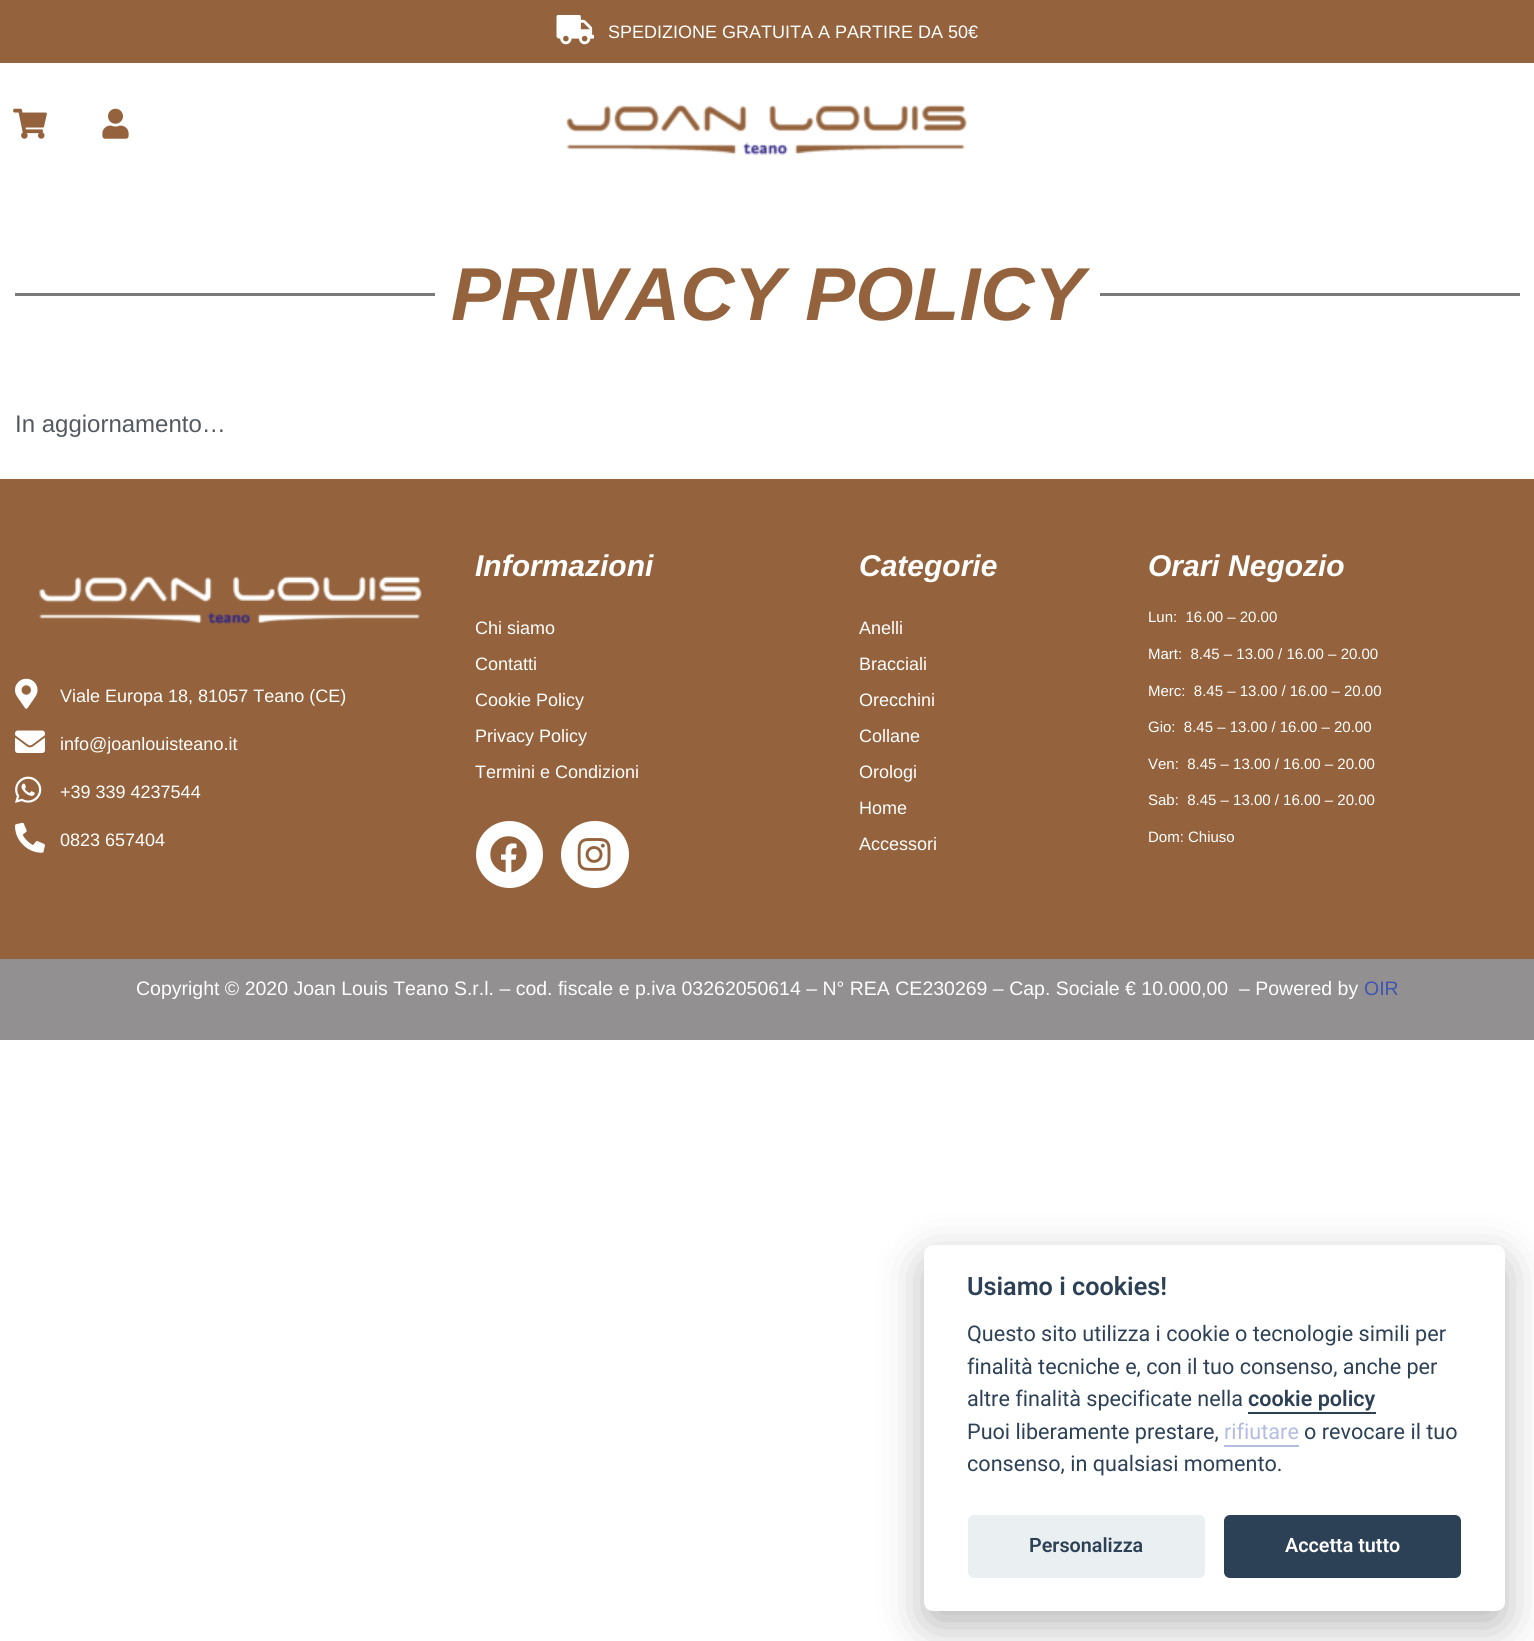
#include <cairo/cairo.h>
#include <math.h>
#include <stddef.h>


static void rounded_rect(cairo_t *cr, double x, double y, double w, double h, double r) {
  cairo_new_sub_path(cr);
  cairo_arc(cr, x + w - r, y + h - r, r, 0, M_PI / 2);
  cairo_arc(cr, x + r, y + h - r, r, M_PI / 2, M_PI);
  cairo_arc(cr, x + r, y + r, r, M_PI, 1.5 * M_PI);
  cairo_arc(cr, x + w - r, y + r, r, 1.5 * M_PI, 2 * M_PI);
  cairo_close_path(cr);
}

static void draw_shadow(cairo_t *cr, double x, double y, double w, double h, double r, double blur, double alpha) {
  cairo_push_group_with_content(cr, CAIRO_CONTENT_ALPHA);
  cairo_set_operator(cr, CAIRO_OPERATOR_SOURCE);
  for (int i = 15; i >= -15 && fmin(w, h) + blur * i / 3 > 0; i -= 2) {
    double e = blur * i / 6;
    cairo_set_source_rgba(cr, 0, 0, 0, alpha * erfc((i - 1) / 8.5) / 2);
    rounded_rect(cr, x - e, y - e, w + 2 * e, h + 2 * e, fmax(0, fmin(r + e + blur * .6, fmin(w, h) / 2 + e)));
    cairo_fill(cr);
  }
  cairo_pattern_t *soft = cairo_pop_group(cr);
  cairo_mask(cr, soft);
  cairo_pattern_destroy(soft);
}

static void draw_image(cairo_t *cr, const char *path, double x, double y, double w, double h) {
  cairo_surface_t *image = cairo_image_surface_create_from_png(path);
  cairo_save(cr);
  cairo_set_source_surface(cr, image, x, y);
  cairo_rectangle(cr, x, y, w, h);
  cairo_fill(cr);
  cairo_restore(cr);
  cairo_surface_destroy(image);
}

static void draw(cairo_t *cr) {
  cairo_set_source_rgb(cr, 1, 1, 1);
  cairo_paint(cr);
  cairo_set_source_rgb(cr, 148 / 255.0, 99 / 255.0, 61 / 255.0);
  cairo_rectangle(cr, 0, 0, 1534, 63);
  cairo_fill(cr);
  draw_image(cr, "images/1.png", 556, 15, 38, 30);
  draw_image(cr, "images/2.png", 13, 108, 34, 31);
  draw_image(cr, "images/3.png", 102, 108, 27, 31);
  draw_image(cr, "images/4.png", 566, 104, 401, 51);
  cairo_set_source_rgb(cr, 122 / 255.0, 122 / 255.0, 122 / 255.0);
  cairo_rectangle(cr, 15, 293, 420, 3);
  cairo_fill(cr);
  cairo_rectangle(cr, 1100, 293, 420, 3);
  cairo_fill(cr);
  cairo_set_source_rgb(cr, 148 / 255.0, 99 / 255.0, 61 / 255.0);
  cairo_rectangle(cr, 0, 479, 1534, 480);
  cairo_fill(cr);
  draw_image(cr, "images/5.png", 39, 576, 383, 48);
  draw_image(cr, "images/6.png", 15, 678, 23, 31);
  draw_image(cr, "images/7.png", 15, 730, 30, 23);
  draw_image(cr, "images/8.png", 15, 776, 27, 27);
  draw_image(cr, "images/9.png", 15, 822, 30, 31);
  cairo_set_source_rgb(cr, 1, 1, 1);
  cairo_arc(cr, 509.5, 854.5, 33.5, 0, 2 * M_PI);
  cairo_fill(cr);
  draw_image(cr, "images/10.png", 490, 836, 37, 37);
  rounded_rect(cr, 561, 821, 68, 67, 33.5);
  cairo_fill(cr);
  draw_image(cr, "images/11.png", 577, 838, 34, 33);
  cairo_set_source_rgb(cr, 146 / 255.0, 144 / 255.0, 144 / 255.0);
  cairo_rectangle(cr, 0, 959, 1534, 81);
  cairo_fill(cr);
  cairo_set_source_rgb(cr, 2 / 255.0, 2 / 255.0, 3 / 255.0);
  draw_shadow(cr, 924, 1260, 581, 366, 9, 22.5, 0.28);
  cairo_set_source_rgb(cr, 1, 1, 1);
  rounded_rect(cr, 924, 1245, 581, 366, 9);
  cairo_fill(cr);
  cairo_set_source_rgb(cr, 45 / 255.0, 65 / 255.0, 86 / 255.0);
  cairo_rectangle(cr, 1248, 1412, 128, 2);
  cairo_fill(cr);
  cairo_set_source_rgb(cr, 180 / 255.0, 188 / 255.0, 227 / 255.0);
  cairo_rectangle(cr, 1224, 1445, 75, 2);
  cairo_fill(cr);
  cairo_set_source_rgb(cr, 234 / 255.0, 239 / 255.0, 242 / 255.0);
  rounded_rect(cr, 968, 1515, 237, 63, 6);
  cairo_fill(cr);
  cairo_set_source_rgb(cr, 45 / 255.0, 65 / 255.0, 86 / 255.0);
  rounded_rect(cr, 1224, 1515, 237, 63, 6);
  cairo_fill(cr);
  cairo_select_font_face(cr, "Liberation Sans", CAIRO_FONT_SLANT_NORMAL, CAIRO_FONT_WEIGHT_NORMAL);
  cairo_set_font_size(cr, 18);
  cairo_set_source_rgb(cr, 1, 1, 1);
  cairo_move_to(cr, 608, 38);
  cairo_show_text(cr, "SPEDIZIONE GRATUITA A PARTIRE DA 50€");
  cairo_select_font_face(cr, "Liberation Sans", CAIRO_FONT_SLANT_ITALIC, CAIRO_FONT_WEIGHT_BOLD);
  cairo_set_font_size(cr, 75);
  cairo_set_source_rgb(cr, 148 / 255.0, 99 / 255.0, 61 / 255.0);
  cairo_move_to(cr, 451, 320);
  cairo_show_text(cr, "PRIVACY POLICY");
  cairo_select_font_face(cr, "Liberation Sans", CAIRO_FONT_SLANT_NORMAL, CAIRO_FONT_WEIGHT_NORMAL);
  cairo_set_font_size(cr, 24);
  cairo_set_source_rgb(cr, 84 / 255.0, 89 / 255.0, 95 / 255.0);
  cairo_move_to(cr, 15, 432);
  cairo_show_text(cr, "In aggiornamento…");
  cairo_set_font_size(cr, 18);
  cairo_set_source_rgb(cr, 1, 1, 1);
  cairo_move_to(cr, 60, 702);
  cairo_show_text(cr, "Viale Europa 18, 81057 Teano (CE)");
  cairo_move_to(cr, 60, 750);
  cairo_show_text(cr, "info@joanlouisteano.it");
  cairo_move_to(cr, 60, 798);
  cairo_show_text(cr, "+39 339 4237544");
  cairo_move_to(cr, 60, 846);
  cairo_show_text(cr, "0823 657404");
  cairo_select_font_face(cr, "Liberation Sans", CAIRO_FONT_SLANT_ITALIC, CAIRO_FONT_WEIGHT_BOLD);
  cairo_set_font_size(cr, 30);
  cairo_move_to(cr, 475, 576);
  cairo_show_text(cr, "Informazioni");
  cairo_select_font_face(cr, "Liberation Sans", CAIRO_FONT_SLANT_NORMAL, CAIRO_FONT_WEIGHT_NORMAL);
  cairo_set_font_size(cr, 18);
  cairo_move_to(cr, 475, 634);
  cairo_show_text(cr, "Chi siamo");
  cairo_move_to(cr, 475, 670);
  cairo_show_text(cr, "Contatti");
  cairo_move_to(cr, 475, 706);
  cairo_show_text(cr, "Cookie Policy");
  cairo_move_to(cr, 475, 742);
  cairo_show_text(cr, "Privacy Policy");
  cairo_move_to(cr, 475, 778);
  cairo_show_text(cr, "Termini e Condizioni");
  cairo_select_font_face(cr, "Liberation Sans", CAIRO_FONT_SLANT_ITALIC, CAIRO_FONT_WEIGHT_BOLD);
  cairo_set_font_size(cr, 30);
  cairo_move_to(cr, 859, 576);
  cairo_show_text(cr, "Categorie");
  cairo_select_font_face(cr, "Liberation Sans", CAIRO_FONT_SLANT_NORMAL, CAIRO_FONT_WEIGHT_NORMAL);
  cairo_set_font_size(cr, 18);
  cairo_move_to(cr, 859, 634);
  cairo_show_text(cr, "Anelli");
  cairo_move_to(cr, 859, 670);
  cairo_show_text(cr, "Bracciali");
  cairo_move_to(cr, 859, 706);
  cairo_show_text(cr, "Orecchini");
  cairo_move_to(cr, 859, 742);
  cairo_show_text(cr, "Collane");
  cairo_move_to(cr, 859, 778);
  cairo_show_text(cr, "Orologi");
  cairo_move_to(cr, 859, 814);
  cairo_show_text(cr, "Home");
  cairo_move_to(cr, 859, 850);
  cairo_show_text(cr, "Accessori");
  cairo_select_font_face(cr, "Liberation Sans", CAIRO_FONT_SLANT_ITALIC, CAIRO_FONT_WEIGHT_BOLD);
  cairo_set_font_size(cr, 30);
  cairo_move_to(cr, 1148, 576);
  cairo_show_text(cr, "Orari Negozio");
  cairo_select_font_face(cr, "Liberation Sans", CAIRO_FONT_SLANT_NORMAL, CAIRO_FONT_WEIGHT_NORMAL);
  cairo_set_font_size(cr, 15);
  cairo_move_to(cr, 1148, 622);
  cairo_show_text(cr, "Lun:  16.00 – 20.00");
  cairo_move_to(cr, 1148, 659);
  cairo_show_text(cr, "Mart:  8.45 – 13.00 / 16.00 – 20.00");
  cairo_move_to(cr, 1148, 696);
  cairo_show_text(cr, "Merc:  8.45 – 13.00 / 16.00 – 20.00");
  cairo_move_to(cr, 1148, 732);
  cairo_show_text(cr, "Gio:  8.45 – 13.00 / 16.00 – 20.00");
  cairo_move_to(cr, 1148, 769);
  cairo_show_text(cr, "Ven:  8.45 – 13.00 / 16.00 – 20.00");
  cairo_move_to(cr, 1148, 805);
  cairo_show_text(cr, "Sab:  8.45 – 13.00 / 16.00 – 20.00");
  cairo_move_to(cr, 1148, 842);
  cairo_show_text(cr, "Dom: Chiuso");
  cairo_set_font_size(cr, 19.5);
  cairo_move_to(cr, 136, 995);
  cairo_show_text(cr, "Copyright © 2020 Joan Louis Teano S.r.l. – cod. fiscale e p.iva 03262050614 – N° REA CE230269 – Cap. Sociale € 10.000,00  – Powered by");
  cairo_set_source_rgb(cr, 64 / 255.0, 84 / 255.0, 178 / 255.0);
  cairo_move_to(cr, 1364, 995);
  cairo_show_text(cr, "OIR");
  cairo_select_font_face(cr, "Roboto SemiBold", CAIRO_FONT_SLANT_NORMAL, CAIRO_FONT_WEIGHT_NORMAL);
  cairo_set_font_size(cr, 25.25);
  cairo_set_source_rgb(cr, 45 / 255.0, 65 / 255.0, 86 / 255.0);
  cairo_move_to(cr, 967, 1295);
  cairo_show_text(cr, "Usiamo i cookies!");
  cairo_select_font_face(cr, "Roboto", CAIRO_FONT_SLANT_NORMAL, CAIRO_FONT_WEIGHT_NORMAL);
  cairo_set_font_size(cr, 21.6);
  cairo_move_to(cr, 967, 1341);
  cairo_show_text(cr, "Questo sito utilizza i cookie o tecnologie simili per");
  cairo_move_to(cr, 967, 1374);
  cairo_show_text(cr, "finalità tecniche e, con il tuo consenso, anche per");
  cairo_move_to(cr, 967, 1406);
  cairo_show_text(cr, "altre finalità specificate nella");
  cairo_select_font_face(cr, "Roboto SemiBold", CAIRO_FONT_SLANT_NORMAL, CAIRO_FONT_WEIGHT_NORMAL);
  cairo_move_to(cr, 1248, 1406);
  cairo_show_text(cr, "cookie policy");
  cairo_select_font_face(cr, "Roboto", CAIRO_FONT_SLANT_NORMAL, CAIRO_FONT_WEIGHT_NORMAL);
  cairo_move_to(cr, 967, 1439);
  cairo_show_text(cr, "Puoi liberamente prestare,");
  cairo_set_source_rgb(cr, 180 / 255.0, 188 / 255.0, 227 / 255.0);
  cairo_move_to(cr, 1224, 1439);
  cairo_show_text(cr, "rifiutare");
  cairo_set_source_rgb(cr, 45 / 255.0, 65 / 255.0, 86 / 255.0);
  cairo_move_to(cr, 1304, 1439);
  cairo_show_text(cr, "o revocare il tuo");
  cairo_move_to(cr, 967, 1471);
  cairo_show_text(cr, "consenso, in qualsiasi momento.");
  cairo_select_font_face(cr, "Roboto SemiBold", CAIRO_FONT_SLANT_NORMAL, CAIRO_FONT_WEIGHT_NORMAL);
  cairo_set_font_size(cr, 19.75);
  cairo_move_to(cr, 1029, 1552);
  cairo_show_text(cr, "Personalizza");
  cairo_set_source_rgb(cr, 1, 1, 1);
  cairo_move_to(cr, 1285, 1552);
  cairo_show_text(cr, "Accetta tutto");
}

int main(void) {
  cairo_surface_t *surface = cairo_image_surface_create(CAIRO_FORMAT_RGB24, 1534, 1641);
  cairo_t *cr = cairo_create(surface);
  cairo_font_options_t *options = cairo_font_options_create();
  cairo_font_options_set_hint_metrics(options, CAIRO_HINT_METRICS_OFF);
  cairo_font_options_set_hint_style(options, CAIRO_HINT_STYLE_NONE);
  cairo_set_font_options(cr, options);
  cairo_set_miter_limit(cr, 4);
  draw(cr);
  cairo_surface_write_to_png(surface, "out.png");
  cairo_font_options_destroy(options);
  cairo_destroy(cr);
  cairo_surface_destroy(surface);
  return 0;
}
